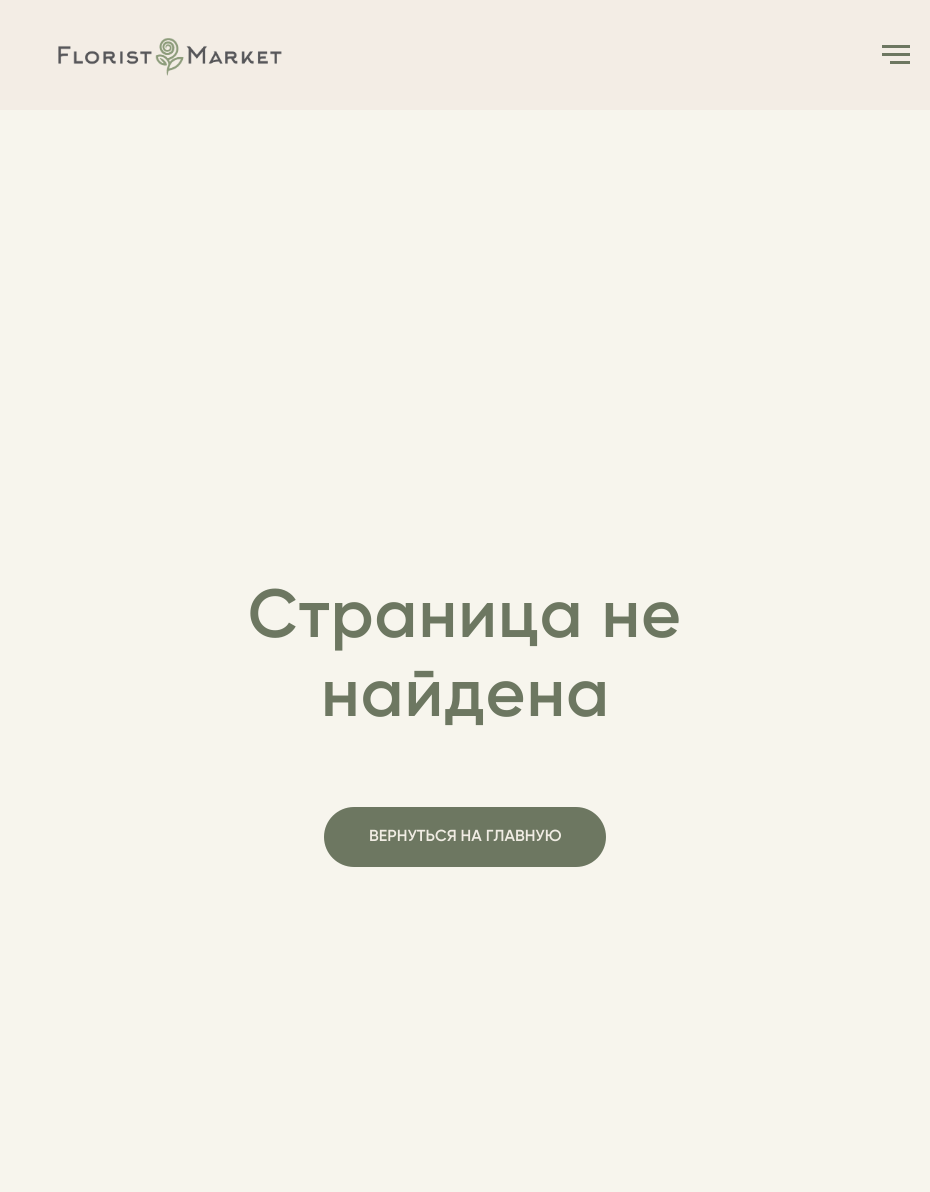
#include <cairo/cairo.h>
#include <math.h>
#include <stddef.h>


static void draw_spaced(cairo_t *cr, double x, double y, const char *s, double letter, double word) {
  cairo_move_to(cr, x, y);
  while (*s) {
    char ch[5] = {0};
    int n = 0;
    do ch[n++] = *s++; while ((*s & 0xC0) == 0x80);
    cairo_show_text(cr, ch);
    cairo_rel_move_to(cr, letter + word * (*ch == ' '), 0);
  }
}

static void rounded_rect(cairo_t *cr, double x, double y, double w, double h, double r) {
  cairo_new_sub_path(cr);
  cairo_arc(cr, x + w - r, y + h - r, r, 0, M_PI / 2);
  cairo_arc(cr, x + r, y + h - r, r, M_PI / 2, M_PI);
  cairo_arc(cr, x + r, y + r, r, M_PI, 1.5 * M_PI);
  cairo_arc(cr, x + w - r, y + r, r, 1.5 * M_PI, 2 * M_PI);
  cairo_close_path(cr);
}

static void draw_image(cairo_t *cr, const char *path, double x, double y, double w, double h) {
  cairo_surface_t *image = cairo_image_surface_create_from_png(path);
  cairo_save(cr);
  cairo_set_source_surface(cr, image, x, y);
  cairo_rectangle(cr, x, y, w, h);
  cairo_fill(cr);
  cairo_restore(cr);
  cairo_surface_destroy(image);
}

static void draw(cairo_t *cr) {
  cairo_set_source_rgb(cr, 247 / 255.0, 245 / 255.0, 237 / 255.0);
  cairo_paint(cr);
  cairo_set_source_rgb(cr, 243 / 255.0, 237 / 255.0, 229 / 255.0);
  cairo_rectangle(cr, 0, 0, 930, 110);
  cairo_fill(cr);
  draw_image(cr, "images/1.png", 58, 38, 224, 38);
  cairo_set_source_rgb(cr, 109 / 255.0, 119 / 255.0, 97 / 255.0);
  cairo_rectangle(cr, 882, 45, 28, 3);
  cairo_fill(cr);
  cairo_rectangle(cr, 882, 53, 28, 3);
  cairo_fill(cr);
  cairo_rectangle(cr, 890, 61, 20, 3);
  cairo_fill(cr);
  rounded_rect(cr, 324, 807, 282, 60, 30);
  cairo_fill(cr);
  cairo_select_font_face(cr, "Gilroy SemiBold", CAIRO_FONT_SLANT_NORMAL, CAIRO_FONT_WEIGHT_NORMAL);
  cairo_set_font_size(cr, 68);
  draw_spaced(cr, 248, 637, "Страница не", 1, 0);
  draw_spaced(cr, 321, 716, "найдена", 1, 0);
  cairo_set_font_size(cr, 16);
  cairo_set_source_rgb(cr, 240 / 255.0, 236 / 255.0, 227 / 255.0);
  cairo_move_to(cr, 369, 841);
  cairo_show_text(cr, "ВЕРНУТЬСЯ НА ГЛАВНУЮ");
}

int main(void) {
  cairo_surface_t *surface = cairo_image_surface_create(CAIRO_FORMAT_RGB24, 930, 1192);
  cairo_t *cr = cairo_create(surface);
  cairo_font_options_t *options = cairo_font_options_create();
  cairo_font_options_set_hint_metrics(options, CAIRO_HINT_METRICS_OFF);
  cairo_font_options_set_hint_style(options, CAIRO_HINT_STYLE_NONE);
  cairo_set_font_options(cr, options);
  cairo_set_miter_limit(cr, 4);
  draw(cr);
  cairo_surface_write_to_png(surface, "out.png");
  cairo_font_options_destroy(options);
  cairo_destroy(cr);
  cairo_surface_destroy(surface);
  return 0;
}
